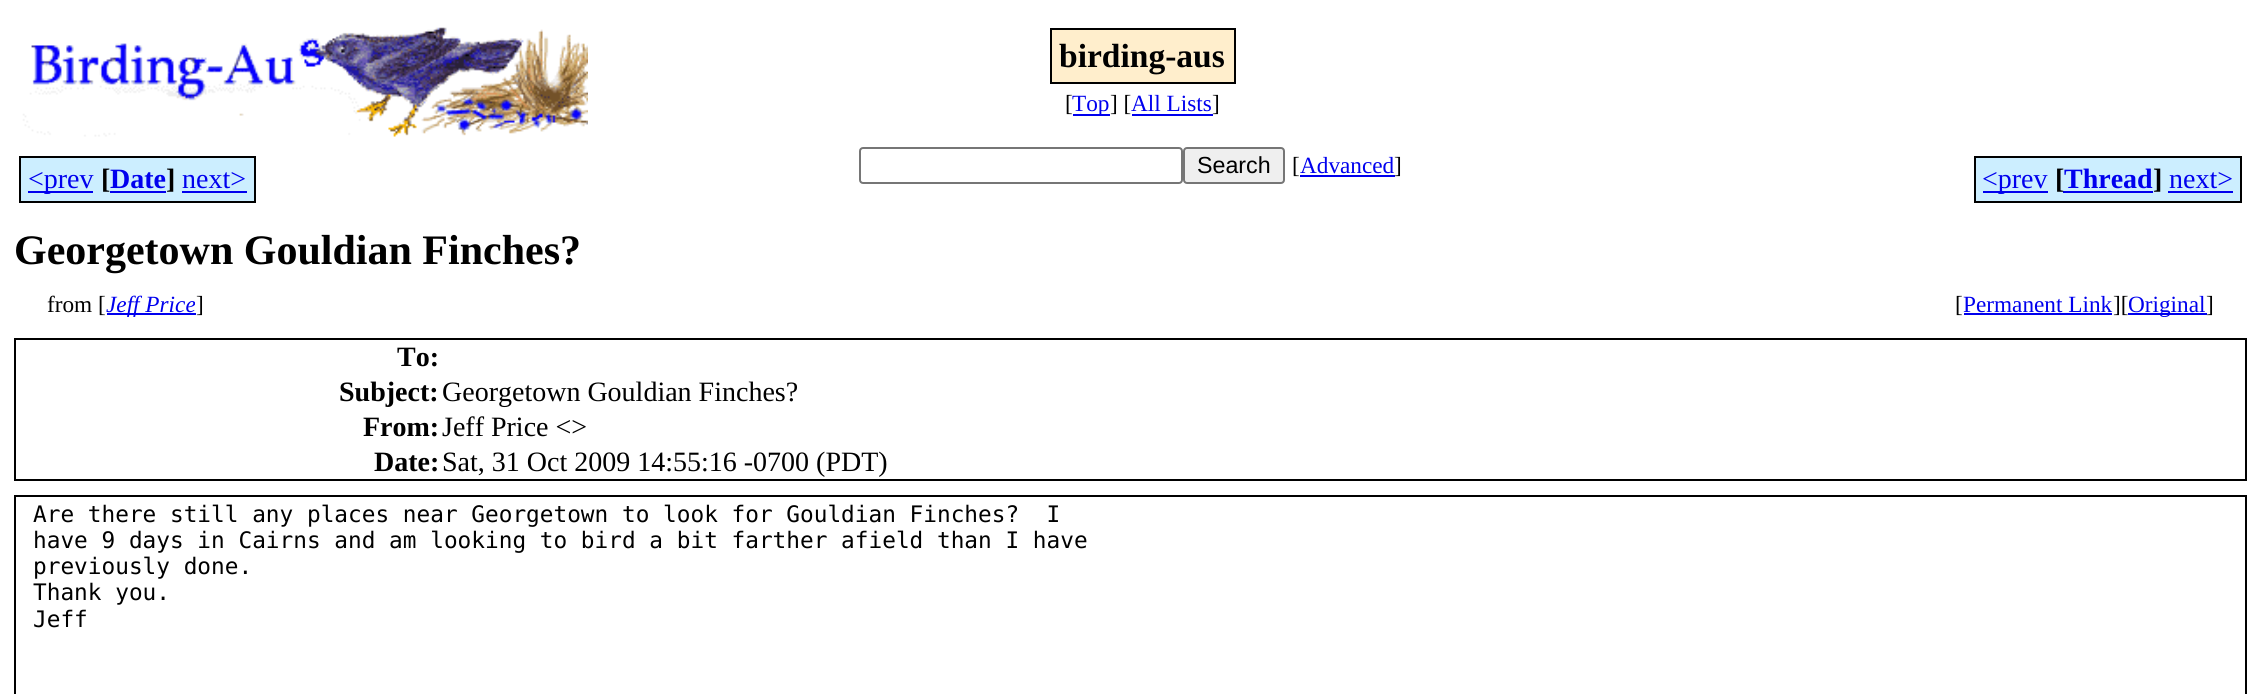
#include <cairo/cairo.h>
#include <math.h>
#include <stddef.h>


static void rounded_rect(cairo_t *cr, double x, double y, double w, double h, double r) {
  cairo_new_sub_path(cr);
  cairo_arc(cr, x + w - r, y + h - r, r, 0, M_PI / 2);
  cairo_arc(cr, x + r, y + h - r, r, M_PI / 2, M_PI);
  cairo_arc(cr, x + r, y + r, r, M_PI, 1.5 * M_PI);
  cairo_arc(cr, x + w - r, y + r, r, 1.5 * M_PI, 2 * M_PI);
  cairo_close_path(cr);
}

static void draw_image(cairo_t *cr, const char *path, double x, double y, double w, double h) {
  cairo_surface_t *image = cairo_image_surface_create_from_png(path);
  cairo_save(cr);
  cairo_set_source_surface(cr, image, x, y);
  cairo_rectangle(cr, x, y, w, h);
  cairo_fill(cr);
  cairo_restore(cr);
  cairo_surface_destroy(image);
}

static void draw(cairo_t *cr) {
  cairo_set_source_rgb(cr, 1, 1, 1);
  cairo_paint(cr);
  draw_image(cr, "images/1.png", 22, 27, 566, 110);
  cairo_set_source_rgb(cr, 1, 238 / 255.0, 204 / 255.0);
  cairo_rectangle(cr, 1051, 29, 184, 54);
  cairo_fill_preserve(cr);
  cairo_set_source_rgb(cr, 0, 0, 0);
  cairo_stroke(cr);
  cairo_set_source_rgb(cr, 0, 0, 238 / 255.0);
  cairo_rectangle(cr, 1073, 114, 37, 2);
  cairo_fill(cr);
  cairo_rectangle(cr, 1132, 114, 81, 2);
  cairo_fill(cr);
  cairo_set_source_rgb(cr, 204 / 255.0, 238 / 255.0, 1);
  cairo_rectangle(cr, 21, 158, 72, 43);
  cairo_fill(cr);
  cairo_set_source_rgb(cr, 0, 0, 0);
  cairo_rectangle(cr, 19, 156, 74, 2);
  cairo_fill(cr);
  cairo_rectangle(cr, 19, 201, 74, 2);
  cairo_fill(cr);
  cairo_rectangle(cr, 19, 156, 2, 47);
  cairo_fill(cr);
  cairo_set_source_rgb(cr, 204 / 255.0, 238 / 255.0, 1);
  cairo_rectangle(cr, 93, 156, 7, 47);
  cairo_fill(cr);
  cairo_set_source_rgb(cr, 0, 0, 0);
  cairo_rectangle(cr, 93, 201, 82, 2);
  cairo_fill(cr);
  cairo_set_source_rgb(cr, 0, 0, 238 / 255.0);
  cairo_rectangle(cr, 28, 191, 65, 2);
  cairo_fill(cr);
  cairo_set_source_rgb(cr, 204 / 255.0, 238 / 255.0, 1);
  cairo_rectangle(cr, 100, 158, 75, 43);
  cairo_fill(cr);
  cairo_set_source_rgb(cr, 0, 0, 0);
  cairo_rectangle(cr, 93, 156, 82, 2);
  cairo_fill(cr);
  cairo_set_source_rgb(cr, 0, 0, 238 / 255.0);
  cairo_rectangle(cr, 110, 191, 56, 2);
  cairo_fill(cr);
  cairo_set_source_rgb(cr, 204 / 255.0, 238 / 255.0, 1);
  cairo_rectangle(cr, 175, 156, 7, 47);
  cairo_fill(cr);
  cairo_set_source_rgb(cr, 0, 0, 0);
  cairo_rectangle(cr, 175, 156, 81, 2);
  cairo_fill(cr);
  cairo_rectangle(cr, 175, 201, 7, 2);
  cairo_fill(cr);
  cairo_set_source_rgb(cr, 204 / 255.0, 238 / 255.0, 1);
  cairo_rectangle(cr, 182, 158, 72, 43);
  cairo_fill(cr);
  cairo_set_source_rgb(cr, 0, 0, 0);
  cairo_rectangle(cr, 254, 156, 2, 47);
  cairo_fill(cr);
  cairo_rectangle(cr, 182, 201, 74, 2);
  cairo_fill(cr);
  cairo_set_source_rgb(cr, 0, 0, 238 / 255.0);
  cairo_rectangle(cr, 182, 191, 65, 2);
  cairo_fill(cr);
  rounded_rect(cr, 860, 148, 322, 35, 3);
  cairo_set_source_rgb(cr, 118 / 255.0, 118 / 255.0, 118 / 255.0);
  cairo_stroke(cr);
  cairo_set_source_rgb(cr, 239 / 255.0, 239 / 255.0, 239 / 255.0);
  rounded_rect(cr, 1184, 148, 100, 35, 3);
  cairo_fill_preserve(cr);
  cairo_set_source_rgb(cr, 118 / 255.0, 118 / 255.0, 118 / 255.0);
  cairo_stroke(cr);
  cairo_set_source_rgb(cr, 0, 0, 238 / 255.0);
  cairo_rectangle(cr, 1300, 175, 95, 2);
  cairo_fill(cr);
  cairo_set_source_rgb(cr, 204 / 255.0, 238 / 255.0, 1);
  cairo_rectangle(cr, 1976, 158, 72, 43);
  cairo_fill(cr);
  cairo_set_source_rgb(cr, 0, 0, 0);
  cairo_rectangle(cr, 1974, 156, 74, 2);
  cairo_fill(cr);
  cairo_rectangle(cr, 1974, 201, 74, 2);
  cairo_fill(cr);
  cairo_rectangle(cr, 1974, 156, 2, 47);
  cairo_fill(cr);
  cairo_set_source_rgb(cr, 204 / 255.0, 238 / 255.0, 1);
  cairo_rectangle(cr, 2048, 156, 15, 47);
  cairo_fill(cr);
  cairo_set_source_rgb(cr, 0, 0, 0);
  cairo_rectangle(cr, 2048, 201, 105, 2);
  cairo_fill(cr);
  cairo_set_source_rgb(cr, 0, 0, 238 / 255.0);
  cairo_rectangle(cr, 1983, 191, 65, 2);
  cairo_fill(cr);
  cairo_set_source_rgb(cr, 204 / 255.0, 238 / 255.0, 1);
  cairo_rectangle(cr, 2063, 158, 90, 43);
  cairo_fill(cr);
  cairo_set_source_rgb(cr, 0, 0, 238 / 255.0);
  cairo_rectangle(cr, 2063, 191, 90, 2);
  cairo_fill(cr);
  cairo_set_source_rgb(cr, 0, 0, 0);
  cairo_rectangle(cr, 2048, 156, 105, 2);
  cairo_fill(cr);
  cairo_set_source_rgb(cr, 204 / 255.0, 238 / 255.0, 1);
  cairo_rectangle(cr, 2153, 156, 15, 47);
  cairo_fill(cr);
  cairo_set_source_rgb(cr, 0, 0, 0);
  cairo_rectangle(cr, 2153, 156, 89, 2);
  cairo_fill(cr);
  cairo_rectangle(cr, 2153, 201, 15, 2);
  cairo_fill(cr);
  cairo_set_source_rgb(cr, 204 / 255.0, 238 / 255.0, 1);
  cairo_rectangle(cr, 2168, 158, 72, 43);
  cairo_fill(cr);
  cairo_set_source_rgb(cr, 0, 0, 0);
  cairo_rectangle(cr, 2240, 156, 2, 47);
  cairo_fill(cr);
  cairo_rectangle(cr, 2168, 201, 74, 2);
  cairo_fill(cr);
  cairo_set_source_rgb(cr, 0, 0, 238 / 255.0);
  cairo_rectangle(cr, 2168, 191, 65, 2);
  cairo_fill(cr);
  cairo_rectangle(cr, 107, 313, 89, 2);
  cairo_fill(cr);
  cairo_rectangle(cr, 1964, 313, 148, 2);
  cairo_fill(cr);
  cairo_rectangle(cr, 2128, 313, 79, 2);
  cairo_fill(cr);
  cairo_rectangle(cr, 15, 339, 2231, 141);
  cairo_set_source_rgb(cr, 0, 0, 0);
  cairo_stroke(cr);
  cairo_rectangle(cr, 15, 496, 2231, 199);
  cairo_stroke(cr);
  cairo_select_font_face(cr, "Liberation Serif", CAIRO_FONT_SLANT_NORMAL, CAIRO_FONT_WEIGHT_BOLD);
  cairo_set_font_size(cr, 33.5);
  cairo_move_to(cr, 1059, 67);
  cairo_show_text(cr, "birding-aus");
  cairo_select_font_face(cr, "Liberation Serif", CAIRO_FONT_SLANT_NORMAL, CAIRO_FONT_WEIGHT_NORMAL);
  cairo_set_font_size(cr, 23.25);
  cairo_move_to(cr, 1065, 111);
  cairo_show_text(cr, "[");
  cairo_set_source_rgb(cr, 0, 0, 238 / 255.0);
  cairo_move_to(cr, 1072, 111);
  cairo_show_text(cr, "Top");
  cairo_set_source_rgb(cr, 0, 0, 0);
  cairo_move_to(cr, 1110, 111);
  cairo_show_text(cr, "] [");
  cairo_set_source_rgb(cr, 0, 0, 238 / 255.0);
  cairo_move_to(cr, 1131, 111);
  cairo_show_text(cr, "All Lists");
  cairo_set_source_rgb(cr, 0, 0, 0);
  cairo_move_to(cr, 1212, 111);
  cairo_show_text(cr, "]");
  cairo_set_font_size(cr, 28);
  cairo_set_source_rgb(cr, 0, 0, 238 / 255.0);
  cairo_move_to(cr, 28, 188);
  cairo_show_text(cr, "<prev");
  cairo_select_font_face(cr, "Liberation Serif", CAIRO_FONT_SLANT_NORMAL, CAIRO_FONT_WEIGHT_BOLD);
  cairo_set_source_rgb(cr, 0, 0, 0);
  cairo_move_to(cr, 101, 188);
  cairo_show_text(cr, "[");
  cairo_set_source_rgb(cr, 0, 0, 238 / 255.0);
  cairo_move_to(cr, 110, 188);
  cairo_show_text(cr, "Date");
  cairo_set_source_rgb(cr, 0, 0, 0);
  cairo_move_to(cr, 166, 188);
  cairo_show_text(cr, "]");
  cairo_select_font_face(cr, "Liberation Serif", CAIRO_FONT_SLANT_NORMAL, CAIRO_FONT_WEIGHT_NORMAL);
  cairo_set_source_rgb(cr, 0, 0, 238 / 255.0);
  cairo_move_to(cr, 182, 188);
  cairo_show_text(cr, "next>");
  cairo_select_font_face(cr, "Liberation Sans", CAIRO_FONT_SLANT_NORMAL, CAIRO_FONT_WEIGHT_NORMAL);
  cairo_set_font_size(cr, 23.25);
  cairo_set_source_rgb(cr, 0, 0, 0);
  cairo_move_to(cr, 1197, 173);
  cairo_show_text(cr, "Search");
  cairo_select_font_face(cr, "Liberation Serif", CAIRO_FONT_SLANT_NORMAL, CAIRO_FONT_WEIGHT_NORMAL);
  cairo_move_to(cr, 1292, 173);
  cairo_show_text(cr, "[");
  cairo_set_source_rgb(cr, 0, 0, 238 / 255.0);
  cairo_move_to(cr, 1300, 173);
  cairo_show_text(cr, "Advanced");
  cairo_set_source_rgb(cr, 0, 0, 0);
  cairo_move_to(cr, 1394, 173);
  cairo_show_text(cr, "]");
  cairo_set_font_size(cr, 28);
  cairo_set_source_rgb(cr, 0, 0, 238 / 255.0);
  cairo_move_to(cr, 1982, 188);
  cairo_show_text(cr, "<prev");
  cairo_select_font_face(cr, "Liberation Serif", CAIRO_FONT_SLANT_NORMAL, CAIRO_FONT_WEIGHT_BOLD);
  cairo_set_source_rgb(cr, 0, 0, 0);
  cairo_move_to(cr, 2055, 188);
  cairo_show_text(cr, "[");
  cairo_set_source_rgb(cr, 0, 0, 238 / 255.0);
  cairo_move_to(cr, 2064, 188);
  cairo_show_text(cr, "Thread");
  cairo_set_source_rgb(cr, 0, 0, 0);
  cairo_move_to(cr, 2153, 188);
  cairo_show_text(cr, "]");
  cairo_select_font_face(cr, "Liberation Serif", CAIRO_FONT_SLANT_NORMAL, CAIRO_FONT_WEIGHT_NORMAL);
  cairo_set_source_rgb(cr, 0, 0, 238 / 255.0);
  cairo_move_to(cr, 2169, 188);
  cairo_show_text(cr, "next>");
  cairo_select_font_face(cr, "Liberation Serif", CAIRO_FONT_SLANT_NORMAL, CAIRO_FONT_WEIGHT_BOLD);
  cairo_set_font_size(cr, 42);
  cairo_set_source_rgb(cr, 0, 0, 0);
  cairo_move_to(cr, 14, 264);
  cairo_show_text(cr, "Georgetown Gouldian Finches?");
  cairo_select_font_face(cr, "Liberation Serif", CAIRO_FONT_SLANT_NORMAL, CAIRO_FONT_WEIGHT_NORMAL);
  cairo_set_font_size(cr, 23.25);
  cairo_move_to(cr, 47, 312);
  cairo_show_text(cr, "from [");
  cairo_select_font_face(cr, "Liberation Serif", CAIRO_FONT_SLANT_ITALIC, CAIRO_FONT_WEIGHT_NORMAL);
  cairo_set_source_rgb(cr, 0, 0, 238 / 255.0);
  cairo_move_to(cr, 106, 312);
  cairo_show_text(cr, "Jeff Price");
  cairo_select_font_face(cr, "Liberation Serif", CAIRO_FONT_SLANT_NORMAL, CAIRO_FONT_WEIGHT_NORMAL);
  cairo_set_source_rgb(cr, 0, 0, 0);
  cairo_move_to(cr, 196, 312);
  cairo_show_text(cr, "]");
  cairo_move_to(cr, 1955, 312);
  cairo_show_text(cr, "[");
  cairo_set_source_rgb(cr, 0, 0, 238 / 255.0);
  cairo_move_to(cr, 1963, 312);
  cairo_show_text(cr, "Permanent Link");
  cairo_set_source_rgb(cr, 0, 0, 0);
  cairo_move_to(cr, 2113, 312);
  cairo_show_text(cr, "][");
  cairo_set_source_rgb(cr, 0, 0, 238 / 255.0);
  cairo_move_to(cr, 2128, 312);
  cairo_show_text(cr, "Original");
  cairo_set_source_rgb(cr, 0, 0, 0);
  cairo_move_to(cr, 2206, 312);
  cairo_show_text(cr, "]");
  cairo_select_font_face(cr, "Liberation Serif", CAIRO_FONT_SLANT_NORMAL, CAIRO_FONT_WEIGHT_BOLD);
  cairo_set_font_size(cr, 28);
  cairo_move_to(cr, 397, 366);
  cairo_show_text(cr, "To:");
  cairo_move_to(cr, 339, 401);
  cairo_show_text(cr, "Subject:");
  cairo_select_font_face(cr, "Liberation Serif", CAIRO_FONT_SLANT_NORMAL, CAIRO_FONT_WEIGHT_NORMAL);
  cairo_move_to(cr, 442, 401);
  cairo_show_text(cr, "Georgetown Gouldian Finches?");
  cairo_select_font_face(cr, "Liberation Serif", CAIRO_FONT_SLANT_NORMAL, CAIRO_FONT_WEIGHT_BOLD);
  cairo_move_to(cr, 363, 436);
  cairo_show_text(cr, "From:");
  cairo_select_font_face(cr, "Liberation Serif", CAIRO_FONT_SLANT_NORMAL, CAIRO_FONT_WEIGHT_NORMAL);
  cairo_move_to(cr, 442, 436);
  cairo_show_text(cr, "Jeff Price <>");
  cairo_select_font_face(cr, "Liberation Serif", CAIRO_FONT_SLANT_NORMAL, CAIRO_FONT_WEIGHT_BOLD);
  cairo_move_to(cr, 374, 471);
  cairo_show_text(cr, "Date:");
  cairo_select_font_face(cr, "Liberation Serif", CAIRO_FONT_SLANT_NORMAL, CAIRO_FONT_WEIGHT_NORMAL);
  cairo_move_to(cr, 442, 471);
  cairo_show_text(cr, "Sat, 31 Oct 2009 14:55:16 -0700 (PDT)");
  cairo_select_font_face(cr, "DejaVu Sans Mono", CAIRO_FONT_SLANT_NORMAL, CAIRO_FONT_WEIGHT_NORMAL);
  cairo_set_font_size(cr, 22.75);
  cairo_move_to(cr, 33, 522);
  cairo_show_text(cr, "Are there still any places near Georgetown to look for Gouldian Finches?  I");
  cairo_move_to(cr, 33, 548);
  cairo_show_text(cr, "have 9 days in Cairns and am looking to bird a bit farther afield than I have");
  cairo_move_to(cr, 33, 574);
  cairo_show_text(cr, "previously done.");
  cairo_move_to(cr, 33, 600);
  cairo_show_text(cr, "Thank you.");
  cairo_move_to(cr, 33, 627);
  cairo_show_text(cr, "Jeff");
}

int main(void) {
  cairo_surface_t *surface = cairo_image_surface_create(CAIRO_FORMAT_RGB24, 2261, 694);
  cairo_t *cr = cairo_create(surface);
  cairo_font_options_t *options = cairo_font_options_create();
  cairo_font_options_set_hint_metrics(options, CAIRO_HINT_METRICS_OFF);
  cairo_font_options_set_hint_style(options, CAIRO_HINT_STYLE_NONE);
  cairo_set_font_options(cr, options);
  cairo_set_miter_limit(cr, 4);
  draw(cr);
  cairo_surface_write_to_png(surface, "out.png");
  cairo_font_options_destroy(options);
  cairo_destroy(cr);
  cairo_surface_destroy(surface);
  return 0;
}
